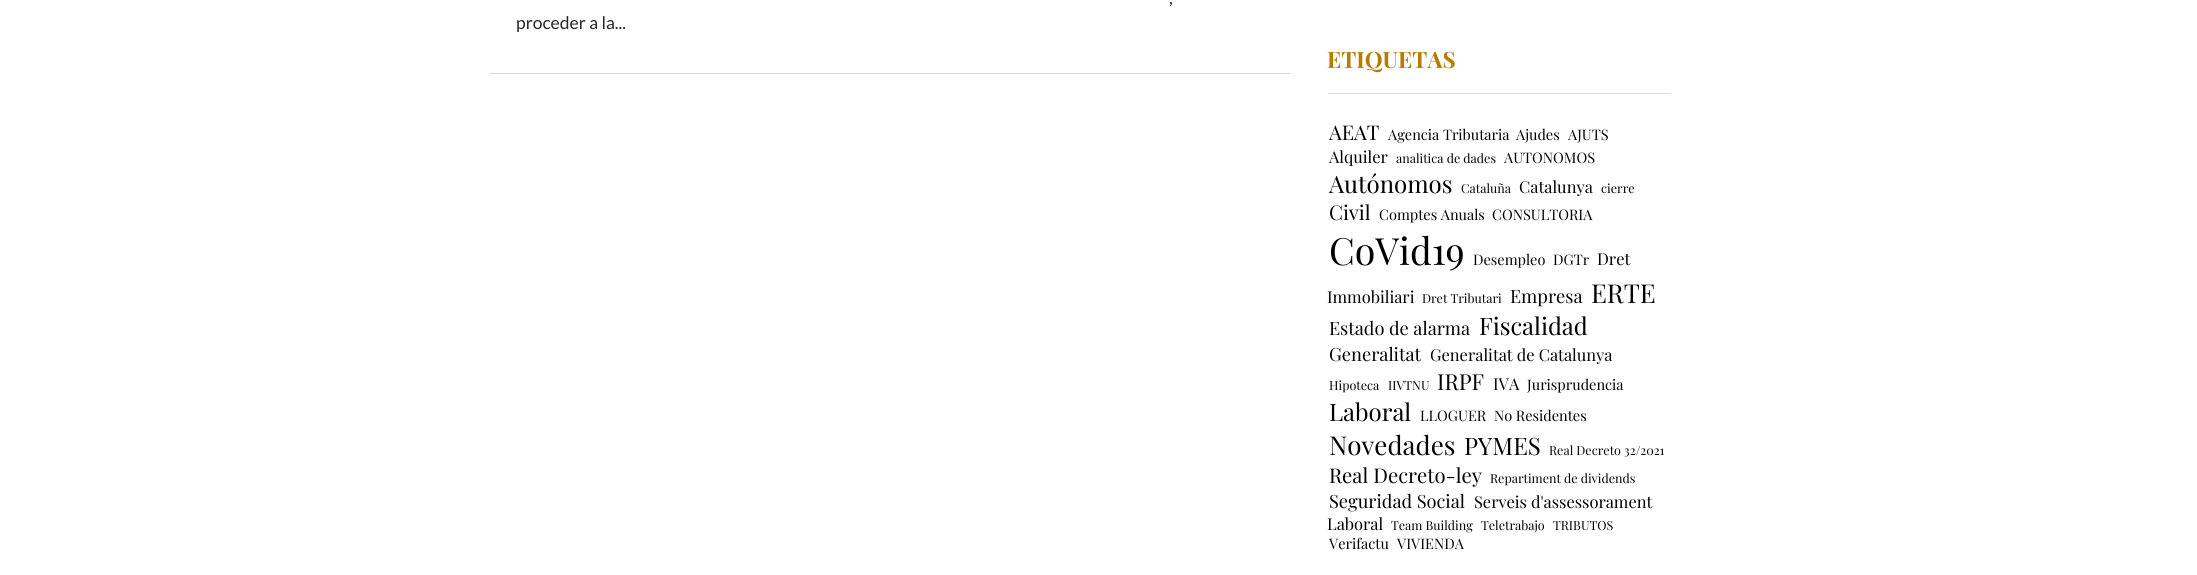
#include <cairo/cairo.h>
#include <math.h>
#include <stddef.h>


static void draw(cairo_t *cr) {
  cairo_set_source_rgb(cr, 1, 1, 1);
  cairo_paint(cr);
  cairo_set_source_rgb(cr, 217 / 255.0, 217 / 255.0, 217 / 255.0);
  cairo_rectangle(cr, 490, 73, 800, 1);
  cairo_fill(cr);
  cairo_rectangle(cr, 1328, 93, 343, 1);
  cairo_fill(cr);
  cairo_select_font_face(cr, "Lato", CAIRO_FONT_SLANT_NORMAL, CAIRO_FONT_WEIGHT_NORMAL);
  cairo_set_font_size(cr, 17.5);
  cairo_set_source_rgb(cr, 38 / 255.0, 38 / 255.0, 38 / 255.0);
  cairo_move_to(cr, 1169, 4);
  cairo_show_text(cr, ",");
  cairo_move_to(cr, 516, 29);
  cairo_show_text(cr, "proceder a la...");
  cairo_select_font_face(cr, "Playfair Display", CAIRO_FONT_SLANT_NORMAL, CAIRO_FONT_WEIGHT_BOLD);
  cairo_set_font_size(cr, 22.5);
  cairo_set_source_rgb(cr, 180 / 255.0, 124 / 255.0, 0);
  cairo_move_to(cr, 1327, 68);
  cairo_show_text(cr, "ETIQUETAS");
  cairo_select_font_face(cr, "Playfair Display", CAIRO_FONT_SLANT_NORMAL, CAIRO_FONT_WEIGHT_NORMAL);
  cairo_set_font_size(cr, 20.25);
  cairo_set_source_rgb(cr, 0, 0, 0);
  cairo_move_to(cr, 1329, 140);
  cairo_show_text(cr, "AEAT");
  cairo_set_font_size(cr, 14.5);
  cairo_move_to(cr, 1388, 140);
  cairo_show_text(cr, "Agencia Tributaria");
  cairo_move_to(cr, 1516, 140);
  cairo_show_text(cr, "Ajudes");
  cairo_move_to(cr, 1568, 140);
  cairo_show_text(cr, "AJUTS");
  cairo_set_font_size(cr, 16.4);
  cairo_move_to(cr, 1329, 163);
  cairo_show_text(cr, "Alquiler");
  cairo_set_font_size(cr, 12.5);
  cairo_move_to(cr, 1396, 163);
  cairo_show_text(cr, "analitica de dades");
  cairo_set_font_size(cr, 14.5);
  cairo_move_to(cr, 1504, 163);
  cairo_show_text(cr, "AUTONOMOS");
  cairo_set_font_size(cr, 24);
  cairo_move_to(cr, 1329, 193);
  cairo_show_text(cr, "Autónomos");
  cairo_set_font_size(cr, 12.5);
  cairo_move_to(cr, 1461, 193);
  cairo_show_text(cr, "Cataluña");
  cairo_set_font_size(cr, 16.4);
  cairo_move_to(cr, 1519, 193);
  cairo_show_text(cr, "Catalunya");
  cairo_set_font_size(cr, 12.5);
  cairo_move_to(cr, 1601, 193);
  cairo_show_text(cr, "cierre");
  cairo_set_font_size(cr, 20.25);
  cairo_move_to(cr, 1329, 220);
  cairo_show_text(cr, "Civil");
  cairo_set_font_size(cr, 14.5);
  cairo_move_to(cr, 1379, 220);
  cairo_show_text(cr, "Comptes Anuals");
  cairo_move_to(cr, 1492, 220);
  cairo_show_text(cr, "CONSULTORIA");
  cairo_set_font_size(cr, 37.5);
  cairo_move_to(cr, 1329, 265);
  cairo_show_text(cr, "CoVid19");
  cairo_set_font_size(cr, 14.5);
  cairo_move_to(cr, 1473, 265);
  cairo_show_text(cr, "Desempleo");
  cairo_move_to(cr, 1553, 265);
  cairo_show_text(cr, "DGTr");
  cairo_set_font_size(cr, 16.4);
  cairo_move_to(cr, 1597, 265);
  cairo_show_text(cr, "Dret");
  cairo_move_to(cr, 1327, 303);
  cairo_show_text(cr, "Immobiliari");
  cairo_set_font_size(cr, 12.5);
  cairo_move_to(cr, 1422, 303);
  cairo_show_text(cr, "Dret Tributari");
  cairo_set_font_size(cr, 18.25);
  cairo_move_to(cr, 1510, 303);
  cairo_show_text(cr, "Empresa");
  cairo_set_font_size(cr, 26);
  cairo_move_to(cr, 1591, 303);
  cairo_show_text(cr, "ERTE");
  cairo_set_font_size(cr, 18.25);
  cairo_move_to(cr, 1329, 335);
  cairo_show_text(cr, "Estado de alarma");
  cairo_set_font_size(cr, 24);
  cairo_move_to(cr, 1479, 335);
  cairo_show_text(cr, "Fiscalidad");
  cairo_set_font_size(cr, 18.25);
  cairo_move_to(cr, 1329, 361);
  cairo_show_text(cr, "Generalitat");
  cairo_set_font_size(cr, 16.4);
  cairo_move_to(cr, 1430, 361);
  cairo_show_text(cr, "Generalitat de Catalunya");
  cairo_set_font_size(cr, 12.5);
  cairo_move_to(cr, 1329, 390);
  cairo_show_text(cr, "Hipoteca");
  cairo_move_to(cr, 1388, 390);
  cairo_show_text(cr, "IIVTNU");
  cairo_set_font_size(cr, 22);
  cairo_move_to(cr, 1437, 390);
  cairo_show_text(cr, "IRPF");
  cairo_set_font_size(cr, 16.4);
  cairo_move_to(cr, 1493, 390);
  cairo_show_text(cr, "IVA");
  cairo_set_font_size(cr, 14.5);
  cairo_move_to(cr, 1527, 390);
  cairo_show_text(cr, "Jurisprudencia");
  cairo_set_font_size(cr, 24);
  cairo_move_to(cr, 1329, 421);
  cairo_show_text(cr, "Laboral");
  cairo_set_font_size(cr, 14.5);
  cairo_move_to(cr, 1420, 421);
  cairo_show_text(cr, "LLOGUER");
  cairo_move_to(cr, 1494, 421);
  cairo_show_text(cr, "No Residentes");
  cairo_set_font_size(cr, 26);
  cairo_move_to(cr, 1329, 455);
  cairo_show_text(cr, "Novedades");
  cairo_set_font_size(cr, 24);
  cairo_move_to(cr, 1464, 455);
  cairo_show_text(cr, "PYMES");
  cairo_set_font_size(cr, 12.5);
  cairo_move_to(cr, 1549, 455);
  cairo_show_text(cr, "Real Decreto 32/2021");
  cairo_set_font_size(cr, 20.25);
  cairo_move_to(cr, 1329, 483);
  cairo_show_text(cr, "Real Decreto-ley");
  cairo_set_font_size(cr, 12.5);
  cairo_move_to(cr, 1490, 483);
  cairo_show_text(cr, "Repartiment de dividends");
  cairo_set_font_size(cr, 18.25);
  cairo_move_to(cr, 1329, 508);
  cairo_show_text(cr, "Seguridad Social");
  cairo_set_font_size(cr, 16.4);
  cairo_move_to(cr, 1474, 508);
  cairo_show_text(cr, "Serveis d'assessorament");
  cairo_move_to(cr, 1327, 530);
  cairo_show_text(cr, "Laboral");
  cairo_set_font_size(cr, 12.5);
  cairo_move_to(cr, 1391, 530);
  cairo_show_text(cr, "Team Building");
  cairo_move_to(cr, 1481, 530);
  cairo_show_text(cr, "Teletrabajo");
  cairo_move_to(cr, 1553, 530);
  cairo_show_text(cr, "TRIBUTOS");
  cairo_set_font_size(cr, 14.5);
  cairo_move_to(cr, 1329, 549);
  cairo_show_text(cr, "Verifactu");
  cairo_move_to(cr, 1397, 549);
  cairo_show_text(cr, "VIVIENDA");
}

int main(void) {
  cairo_surface_t *surface = cairo_image_surface_create(CAIRO_FORMAT_RGB24, 2197, 575);
  cairo_t *cr = cairo_create(surface);
  cairo_font_options_t *options = cairo_font_options_create();
  cairo_font_options_set_hint_metrics(options, CAIRO_HINT_METRICS_OFF);
  cairo_font_options_set_hint_style(options, CAIRO_HINT_STYLE_NONE);
  cairo_set_font_options(cr, options);
  cairo_set_miter_limit(cr, 4);
  draw(cr);
  cairo_surface_write_to_png(surface, "out.png");
  cairo_font_options_destroy(options);
  cairo_destroy(cr);
  cairo_surface_destroy(surface);
  return 0;
}
